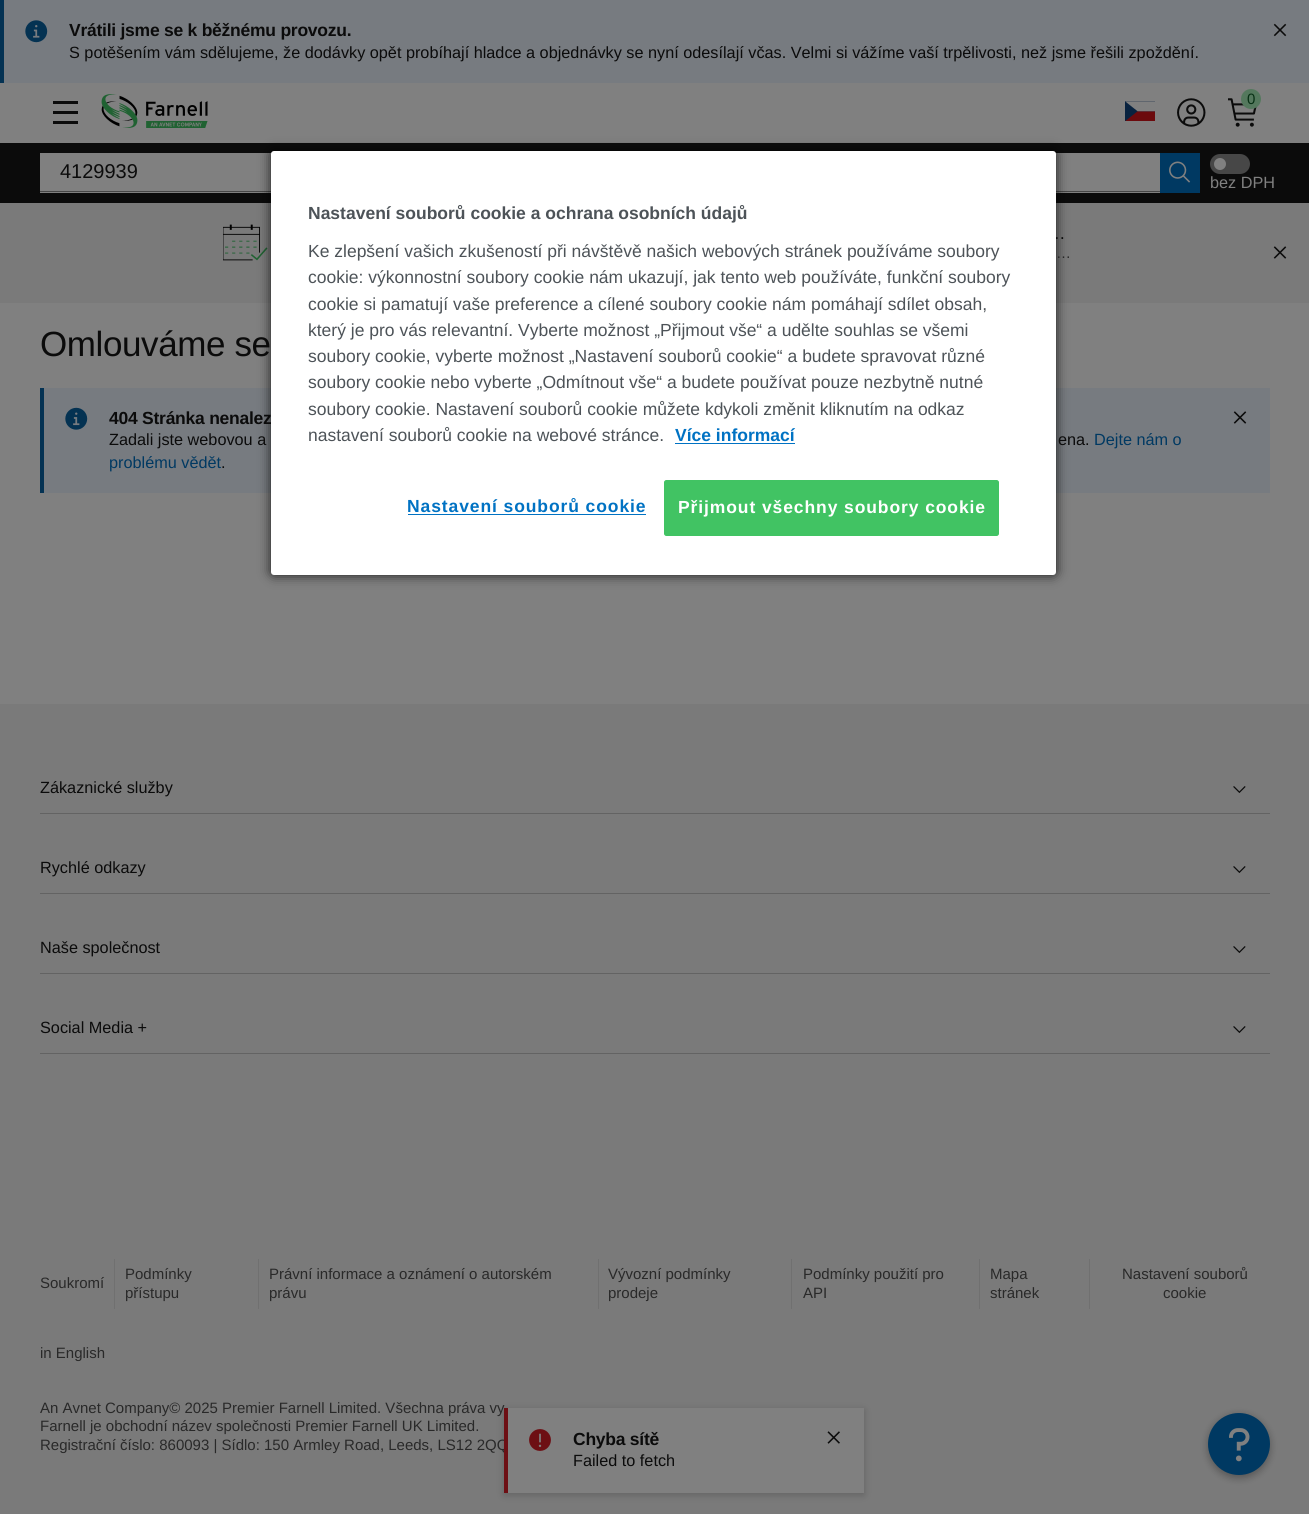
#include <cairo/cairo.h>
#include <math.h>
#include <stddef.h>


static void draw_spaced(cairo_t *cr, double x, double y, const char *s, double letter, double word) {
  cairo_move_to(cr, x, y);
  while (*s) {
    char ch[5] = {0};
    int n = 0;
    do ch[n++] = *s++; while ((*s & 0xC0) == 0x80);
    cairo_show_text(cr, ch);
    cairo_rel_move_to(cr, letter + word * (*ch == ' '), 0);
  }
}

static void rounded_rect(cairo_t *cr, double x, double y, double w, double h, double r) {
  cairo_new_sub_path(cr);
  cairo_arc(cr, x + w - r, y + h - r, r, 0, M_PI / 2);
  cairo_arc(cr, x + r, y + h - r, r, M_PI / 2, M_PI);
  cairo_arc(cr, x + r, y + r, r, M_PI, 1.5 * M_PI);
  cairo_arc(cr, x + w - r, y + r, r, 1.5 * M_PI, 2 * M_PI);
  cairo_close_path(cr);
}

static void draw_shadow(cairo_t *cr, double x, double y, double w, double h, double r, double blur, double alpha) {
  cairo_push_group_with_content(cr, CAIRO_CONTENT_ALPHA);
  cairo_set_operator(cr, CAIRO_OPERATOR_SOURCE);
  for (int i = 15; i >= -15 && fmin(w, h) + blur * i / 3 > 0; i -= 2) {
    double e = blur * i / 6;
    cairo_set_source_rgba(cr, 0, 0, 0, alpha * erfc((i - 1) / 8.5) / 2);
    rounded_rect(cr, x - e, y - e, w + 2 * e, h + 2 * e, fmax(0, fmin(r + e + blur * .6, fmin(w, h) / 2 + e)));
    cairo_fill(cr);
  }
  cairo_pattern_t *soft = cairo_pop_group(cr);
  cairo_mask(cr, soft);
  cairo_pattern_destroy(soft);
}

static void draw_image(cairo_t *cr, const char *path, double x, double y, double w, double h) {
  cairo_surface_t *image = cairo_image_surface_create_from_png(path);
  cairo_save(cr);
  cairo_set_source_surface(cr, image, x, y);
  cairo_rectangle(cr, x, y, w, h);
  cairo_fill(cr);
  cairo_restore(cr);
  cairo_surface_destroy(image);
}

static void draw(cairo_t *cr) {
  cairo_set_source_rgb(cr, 128 / 255.0, 128 / 255.0, 128 / 255.0);
  cairo_paint(cr);
  cairo_set_source_rgb(cr, 119 / 255.0, 123 / 255.0, 128 / 255.0);
  cairo_rectangle(cr, 4, 0, 1305, 83);
  cairo_fill(cr);
  cairo_set_source_rgb(cr, 4 / 255.0, 50 / 255.0, 83 / 255.0);
  cairo_rectangle(cr, 0, 0, 4, 83);
  cairo_fill(cr);
  draw_image(cr, "images/1.png", 25, 20, 23, 23);
  draw_image(cr, "images/2.png", 1273, 23, 14, 14);
  cairo_set_source_rgb(cr, 11 / 255.0, 11 / 255.0, 11 / 255.0);
  cairo_rectangle(cr, 53, 101, 25, 3);
  cairo_fill(cr);
  cairo_rectangle(cr, 53, 111, 25, 3);
  cairo_fill(cr);
  cairo_rectangle(cr, 53, 121, 25, 3);
  cairo_fill(cr);
  draw_image(cr, "images/3.png", 101, 94, 107, 34);
  draw_image(cr, "images/4.png", 1125, 101, 30, 20);
  draw_image(cr, "images/5.png", 1177, 98, 29, 29);
  draw_image(cr, "images/6.png", 1228, 98, 29, 29);
  cairo_set_source_rgb(cr, 84 / 255.0, 120 / 255.0, 93 / 255.0);
  cairo_arc(cr, 1251, 99, 10, 0, 2 * M_PI);
  cairo_fill(cr);
  cairo_set_source_rgb(cr, 11 / 255.0, 11 / 255.0, 11 / 255.0);
  cairo_rectangle(cr, 0, 143, 1309, 60);
  cairo_fill(cr);
  cairo_set_source_rgb(cr, 128 / 255.0, 128 / 255.0, 128 / 255.0);
  cairo_rectangle(cr, 40, 153, 1120, 40);
  cairo_fill(cr);
  cairo_set_source_rgb(cr, 71 / 255.0, 71 / 255.0, 71 / 255.0);
  cairo_rectangle(cr, 40, 191, 1120, 1);
  cairo_fill(cr);
  cairo_set_source_rgb(cr, 0, 57 / 255.0, 98 / 255.0);
  cairo_rectangle(cr, 1160, 153, 40, 40);
  cairo_fill(cr);
  draw_image(cr, "images/7.png", 1169, 161, 22, 22);
  cairo_set_source_rgb(cr, 71 / 255.0, 71 / 255.0, 71 / 255.0);
  rounded_rect(cr, 1210, 154, 40, 20, 10);
  cairo_fill(cr);
  cairo_set_source_rgb(cr, 128 / 255.0, 128 / 255.0, 128 / 255.0);
  cairo_arc(cr, 1220, 164, 6, 0, 2 * M_PI);
  cairo_fill(cr);
  cairo_set_source_rgb(cr, 122 / 255.0, 122 / 255.0, 122 / 255.0);
  cairo_rectangle(cr, 0, 203, 1309, 100);
  cairo_fill(cr);
  draw_image(cr, "images/8.png", 223, 224, 45, 37);
  draw_image(cr, "images/9.png", 1273, 246, 14, 13);
  cairo_set_source_rgb(cr, 119 / 255.0, 123 / 255.0, 128 / 255.0);
  cairo_rectangle(cr, 44, 388, 1226, 105);
  cairo_fill(cr);
  cairo_set_source_rgb(cr, 4 / 255.0, 50 / 255.0, 83 / 255.0);
  cairo_rectangle(cr, 40, 388, 4, 105);
  cairo_fill(cr);
  draw_image(cr, "images/10.png", 65, 407, 23, 23);
  draw_image(cr, "images/11.png", 1233, 411, 14, 13);
  cairo_set_source_rgb(cr, 122 / 255.0, 122 / 255.0, 122 / 255.0);
  cairo_rectangle(cr, 0, 704, 1309, 810);
  cairo_fill(cr);
  cairo_set_source_rgb(cr, 0, 0, 0);
  draw_shadow(cr, 504, 1410, 360, 85, 0, 4, 0.2);
  cairo_set_source_rgb(cr, 128 / 255.0, 128 / 255.0, 128 / 255.0);
  cairo_rectangle(cr, 508, 1408, 356, 85);
  cairo_fill(cr);
  draw_image(cr, "images/12.png", 529, 1429, 22, 22);
  draw_image(cr, "images/13.png", 827, 1431, 13, 13);
  cairo_set_source_rgb(cr, 99 / 255.0, 99 / 255.0, 99 / 255.0);
  cairo_rectangle(cr, 40, 813, 1230, 1);
  cairo_fill(cr);
  draw_image(cr, "images/14.png", 1233, 786, 13, 7);
  cairo_rectangle(cr, 40, 893, 1230, 1);
  cairo_fill(cr);
  draw_image(cr, "images/14.png", 1233, 866, 13, 7);
  cairo_rectangle(cr, 40, 973, 1230, 1);
  cairo_fill(cr);
  draw_image(cr, "images/14.png", 1233, 946, 13, 7);
  cairo_rectangle(cr, 40, 1053, 1230, 1);
  cairo_fill(cr);
  draw_image(cr, "images/14.png", 1233, 1026, 13, 7);
  cairo_set_source_rgb(cr, 112 / 255.0, 112 / 255.0, 112 / 255.0);
  cairo_rectangle(cr, 114, 1259, 1, 50);
  cairo_fill(cr);
  cairo_rectangle(cr, 258, 1259, 1, 50);
  cairo_fill(cr);
  cairo_rectangle(cr, 598, 1259, 1, 50);
  cairo_fill(cr);
  cairo_rectangle(cr, 791, 1259, 1, 50);
  cairo_fill(cr);
  cairo_rectangle(cr, 979, 1259, 1, 50);
  cairo_fill(cr);
  cairo_rectangle(cr, 1089, 1259, 1, 50);
  cairo_fill(cr);
  cairo_set_source_rgb(cr, 0, 0, 0);
  draw_shadow(cr, 1208, 1415, 62, 63, 31, 4, 0.3);
  cairo_set_source_rgb(cr, 0, 57 / 255.0, 98 / 255.0);
  cairo_arc(cr, 1239, 1444, 31, 0, 2 * M_PI);
  cairo_fill(cr);
  draw_image(cr, "images/15.png", 1229, 1428, 21, 34);
  cairo_set_source_rgb(cr, 0, 0, 0);
  draw_shadow(cr, 271, 151, 785, 424, 3, 6, 0.8);
  cairo_select_font_face(cr, "Liberation Sans", CAIRO_FONT_SLANT_NORMAL, CAIRO_FONT_WEIGHT_BOLD);
  cairo_set_font_size(cr, 17.5);
  cairo_set_source_rgb(cr, 11 / 255.0, 11 / 255.0, 11 / 255.0);
  draw_spaced(cr, 69, 36, "Vrátili jsme se k běžnému provozu.", -0.25, 0);
  cairo_select_font_face(cr, "Liberation Sans", CAIRO_FONT_SLANT_NORMAL, CAIRO_FONT_WEIGHT_NORMAL);
  cairo_set_font_size(cr, 16.25);
  cairo_move_to(cr, 69, 58);
  cairo_show_text(cr, "S potěšením vám sdělujeme, že dodávky opět probíhají hladce a objednávky se nyní odesílají včas. Velmi si vážíme vaší trpělivosti, než jsme řešili zpoždění.");
  cairo_set_font_size(cr, 15);
  cairo_set_source_rgb(cr, 7 / 255.0, 48 / 255.0, 20 / 255.0);
  cairo_move_to(cr, 1247, 104);
  cairo_show_text(cr, "0");
  cairo_set_font_size(cr, 20);
  cairo_set_source_rgb(cr, 11 / 255.0, 11 / 255.0, 11 / 255.0);
  cairo_move_to(cr, 60, 178);
  cairo_show_text(cr, "4129939");
  cairo_set_font_size(cr, 16.25);
  cairo_set_source_rgb(cr, 128 / 255.0, 128 / 255.0, 128 / 255.0);
  cairo_move_to(cr, 1210, 188);
  cairo_show_text(cr, "bez DPH");
  cairo_set_font_size(cr, 17.5);
  cairo_set_source_rgb(cr, 11 / 255.0, 11 / 255.0, 11 / 255.0);
  draw_spaced(cr, 1048, 239, "…", -0.25, 0);
  cairo_set_font_size(cr, 15);
  cairo_set_source_rgb(cr, 41 / 255.0, 41 / 255.0, 41 / 255.0);
  cairo_move_to(cr, 1056, 258);
  cairo_show_text(cr, "…");
  cairo_set_font_size(cr, 35);
  cairo_set_source_rgb(cr, 11 / 255.0, 11 / 255.0, 11 / 255.0);
  draw_spaced(cr, 40, 356, "Omlouváme se", -0.4, 0);
  cairo_select_font_face(cr, "Liberation Sans", CAIRO_FONT_SLANT_NORMAL, CAIRO_FONT_WEIGHT_BOLD);
  cairo_set_font_size(cr, 17.5);
  draw_spaced(cr, 109, 424, "404 Stránka nenalez", -0.25, 0);
  cairo_select_font_face(cr, "Liberation Sans", CAIRO_FONT_SLANT_NORMAL, CAIRO_FONT_WEIGHT_NORMAL);
  cairo_set_font_size(cr, 16.25);
  cairo_move_to(cr, 109, 445);
  cairo_show_text(cr, "Zadali jste webovou a");
  cairo_move_to(cr, 1058, 445);
  cairo_show_text(cr, "ena.");
  cairo_set_source_rgb(cr, 0, 57 / 255.0, 98 / 255.0);
  cairo_move_to(cr, 1094, 445);
  cairo_show_text(cr, "Dejte nám o");
  cairo_move_to(cr, 109, 468);
  cairo_show_text(cr, "problému vědět");
  cairo_set_source_rgb(cr, 11 / 255.0, 11 / 255.0, 11 / 255.0);
  cairo_move_to(cr, 221, 468);
  cairo_show_text(cr, ".");
  cairo_select_font_face(cr, "Liberation Sans", CAIRO_FONT_SLANT_NORMAL, CAIRO_FONT_WEIGHT_BOLD);
  cairo_set_font_size(cr, 17.5);
  draw_spaced(cr, 573, 1445, "Chyba sítě", -0.25, 0);
  cairo_select_font_face(cr, "Liberation Sans", CAIRO_FONT_SLANT_NORMAL, CAIRO_FONT_WEIGHT_NORMAL);
  cairo_set_font_size(cr, 16.25);
  cairo_move_to(cr, 573, 1466);
  cairo_show_text(cr, "Failed to fetch");
  cairo_move_to(cr, 40, 793);
  cairo_show_text(cr, "Zákaznické služby");
  cairo_move_to(cr, 40, 873);
  cairo_show_text(cr, "Rychlé odkazy");
  cairo_move_to(cr, 40, 953);
  cairo_show_text(cr, "Naše společnost");
  cairo_move_to(cr, 40, 1033);
  cairo_show_text(cr, "Social Media +");
  cairo_set_font_size(cr, 15);
  cairo_set_source_rgb(cr, 41 / 255.0, 41 / 255.0, 41 / 255.0);
  cairo_move_to(cr, 40, 1288);
  cairo_show_text(cr, "Soukromí");
  cairo_move_to(cr, 125, 1279);
  cairo_show_text(cr, "Podmínky");
  cairo_move_to(cr, 125, 1298);
  cairo_show_text(cr, "přístupu");
  cairo_move_to(cr, 269, 1279);
  cairo_show_text(cr, "Právní informace a oznámení o autorském");
  cairo_move_to(cr, 269, 1298);
  cairo_show_text(cr, "právu");
  cairo_move_to(cr, 608, 1279);
  cairo_show_text(cr, "Vývozní podmínky");
  cairo_move_to(cr, 608, 1298);
  cairo_show_text(cr, "prodeje");
  cairo_move_to(cr, 803, 1279);
  cairo_show_text(cr, "Podmínky použití pro");
  cairo_move_to(cr, 803, 1298);
  cairo_show_text(cr, "API");
  cairo_move_to(cr, 990, 1279);
  cairo_show_text(cr, "Mapa");
  cairo_move_to(cr, 990, 1298);
  cairo_show_text(cr, "stránek");
  cairo_move_to(cr, 1122, 1279);
  cairo_show_text(cr, "Nastavení souborů");
  cairo_move_to(cr, 1163, 1298);
  cairo_show_text(cr, "cookie");
  cairo_move_to(cr, 40, 1358);
  cairo_show_text(cr, "in English");
  cairo_move_to(cr, 40, 1413);
  cairo_show_text(cr, "An Avnet Company© 2025 Premier Farnell Limited. Všechna práva vy");
  cairo_move_to(cr, 40, 1431);
  cairo_show_text(cr, "Farnell je obchodní název společnosti Premier Farnell UK Limited.");
  cairo_move_to(cr, 40, 1450);
  cairo_show_text(cr, "Registrační číslo: 860093 | Sídlo: 150 Armley Road, Leeds, LS12 2QQ");
  cairo_set_source_rgb(cr, 109 / 255.0, 15 / 255.0, 20 / 255.0);
  cairo_rectangle(cr, 504, 1408, 4, 85);
  cairo_fill(cr);
  cairo_set_source_rgb(cr, 1, 1, 1);
  rounded_rect(cr, 271, 151, 785, 424, 3);
  cairo_fill(cr);
  cairo_select_font_face(cr, "Liberation Sans", CAIRO_FONT_SLANT_NORMAL, CAIRO_FONT_WEIGHT_BOLD);
  cairo_set_font_size(cr, 17.5);
  cairo_set_source_rgb(cr, 77 / 255.0, 83 / 255.0, 88 / 255.0);
  cairo_move_to(cr, 308, 219);
  cairo_show_text(cr, "Nastavení souborů cookie a ochrana osobních údajů");
  cairo_select_font_face(cr, "Liberation Sans", CAIRO_FONT_SLANT_NORMAL, CAIRO_FONT_WEIGHT_NORMAL);
  cairo_move_to(cr, 308, 257);
  cairo_show_text(cr, "Ke zlepšení vašich zkušeností při návštěvě našich webových stránek používáme soubory");
  cairo_move_to(cr, 308, 283);
  cairo_show_text(cr, "cookie: výkonnostní soubory cookie nám ukazují, jak tento web používáte, funkční soubory");
  cairo_move_to(cr, 308, 310);
  cairo_show_text(cr, "cookie si pamatují vaše preference a cílené soubory cookie nám pomáhají sdílet obsah,");
  cairo_move_to(cr, 308, 336);
  cairo_show_text(cr, "který je pro vás relevantní. Vyberte možnost „Přijmout vše“ a udělte souhlas se všemi");
  cairo_move_to(cr, 308, 362);
  cairo_show_text(cr, "soubory cookie, vyberte možnost „Nastavení souborů cookie“ a budete spravovat různé");
  cairo_move_to(cr, 308, 388);
  cairo_show_text(cr, "soubory cookie nebo vyberte „Odmítnout vše“ a budete používat pouze nezbytně nutné");
  cairo_move_to(cr, 308, 415);
  cairo_show_text(cr, "soubory cookie. Nastavení souborů cookie můžete kdykoli změnit kliknutím na odkaz");
  cairo_move_to(cr, 308, 441);
  cairo_show_text(cr, "nastavení souborů cookie na webové stránce.");
  cairo_select_font_face(cr, "Liberation Sans", CAIRO_FONT_SLANT_NORMAL, CAIRO_FONT_WEIGHT_BOLD);
  cairo_set_source_rgb(cr, 0, 114 / 255.0, 195 / 255.0);
  cairo_move_to(cr, 675, 441);
  cairo_show_text(cr, "Více informací");
  cairo_rectangle(cr, 675, 443, 120, 1);
  cairo_fill(cr);
  draw_spaced(cr, 407, 512, "Nastavení souborů cookie", 0.9, 0);
  cairo_rectangle(cr, 408, 514, 238, 1);
  cairo_fill(cr);
  cairo_set_source_rgb(cr, 65 / 255.0, 195 / 255.0, 99 / 255.0);
  rounded_rect(cr, 664.5, 480.5, 334, 55, 2);
  cairo_fill_preserve(cr);
  cairo_set_line_width(cr, 1);
  cairo_stroke(cr);
  cairo_set_source_rgb(cr, 1, 1, 1);
  draw_spaced(cr, 678, 513, "Přijmout všechny soubory cookie", 0.9, 0);
}

int main(void) {
  cairo_surface_t *surface = cairo_image_surface_create(CAIRO_FORMAT_RGB24, 1309, 1514);
  cairo_t *cr = cairo_create(surface);
  cairo_font_options_t *options = cairo_font_options_create();
  cairo_font_options_set_hint_metrics(options, CAIRO_HINT_METRICS_OFF);
  cairo_font_options_set_hint_style(options, CAIRO_HINT_STYLE_NONE);
  cairo_set_font_options(cr, options);
  cairo_set_miter_limit(cr, 4);
  draw(cr);
  cairo_surface_write_to_png(surface, "out.png");
  cairo_font_options_destroy(options);
  cairo_destroy(cr);
  cairo_surface_destroy(surface);
  return 0;
}
